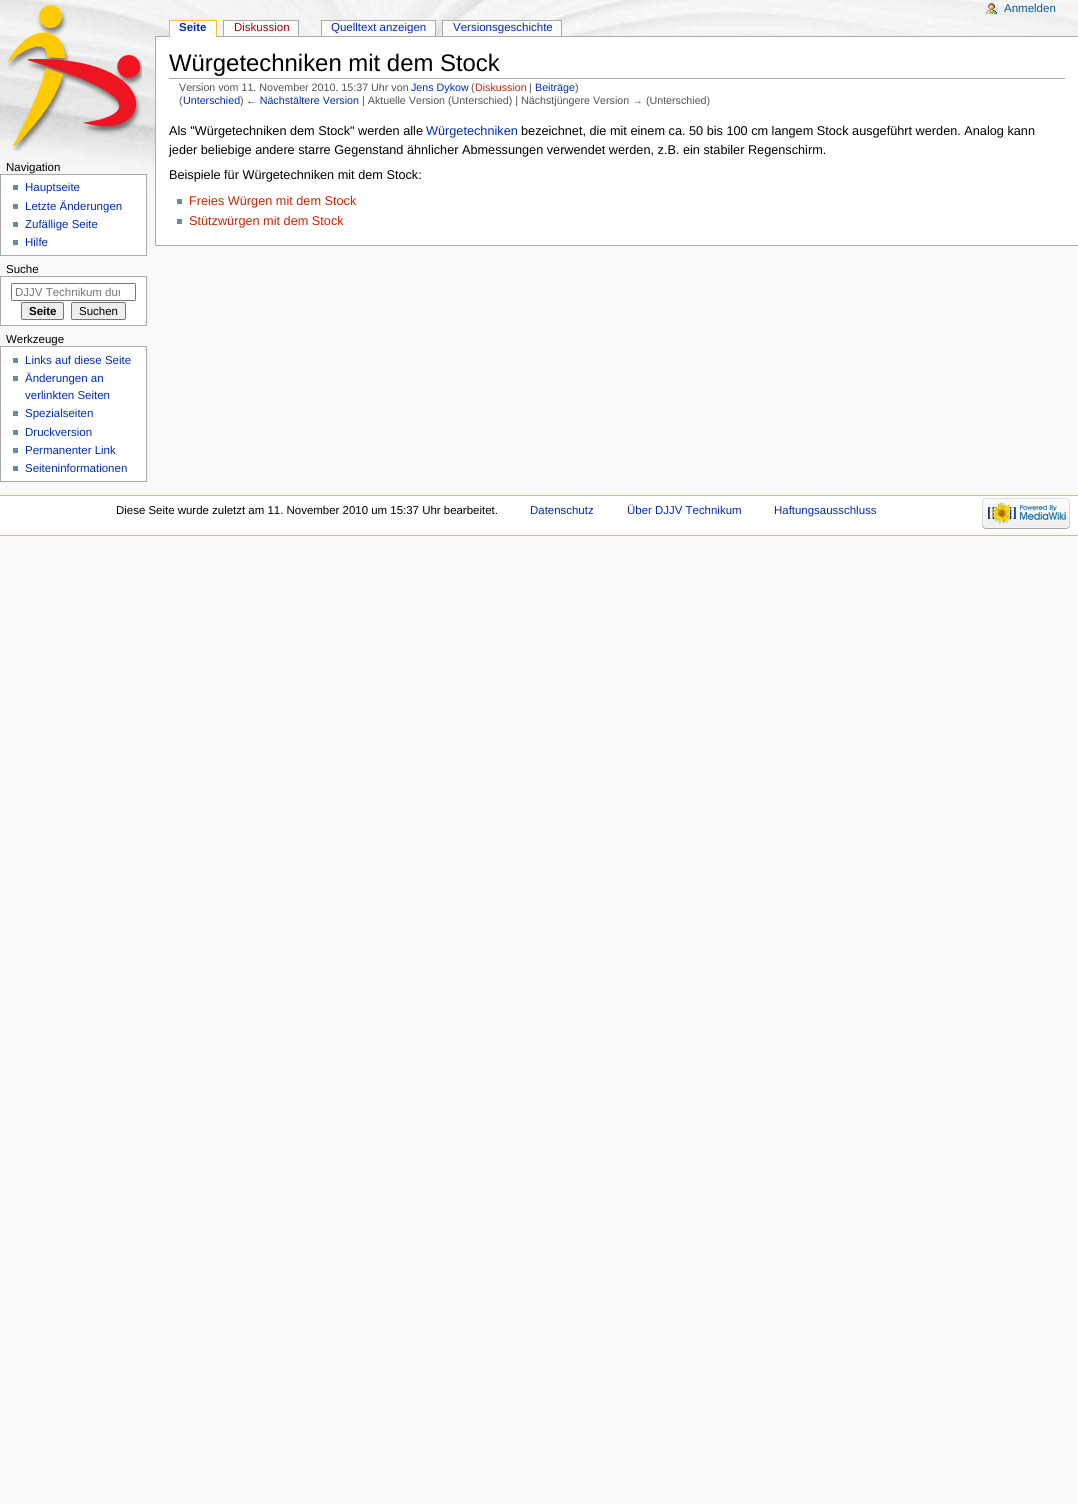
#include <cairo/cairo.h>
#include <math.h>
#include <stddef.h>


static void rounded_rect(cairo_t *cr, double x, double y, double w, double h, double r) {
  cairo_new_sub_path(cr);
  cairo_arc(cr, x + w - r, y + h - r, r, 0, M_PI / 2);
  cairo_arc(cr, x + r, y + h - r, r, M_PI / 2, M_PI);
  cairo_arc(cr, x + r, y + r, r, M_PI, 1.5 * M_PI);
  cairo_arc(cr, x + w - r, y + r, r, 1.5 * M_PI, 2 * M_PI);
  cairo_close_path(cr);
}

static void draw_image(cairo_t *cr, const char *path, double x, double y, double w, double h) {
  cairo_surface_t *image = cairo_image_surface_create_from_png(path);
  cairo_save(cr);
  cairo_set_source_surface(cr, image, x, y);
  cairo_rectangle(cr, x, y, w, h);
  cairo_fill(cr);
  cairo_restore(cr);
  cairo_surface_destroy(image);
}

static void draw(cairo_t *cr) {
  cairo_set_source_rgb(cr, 249 / 255.0, 249 / 255.0, 249 / 255.0);
  cairo_paint(cr);
  draw_image(cr, "images/1.png", 0, 0, 1078, 194);
  draw_image(cr, "images/2.png", 7, 5, 135, 146);
  cairo_set_source_rgb(cr, 250 / 255.0, 189 / 255.0, 35 / 255.0);
  cairo_rectangle(cr, 169, 20, 48, 1);
  cairo_fill(cr);
  cairo_rectangle(cr, 216, 20, 1, 16);
  cairo_fill(cr);
  cairo_rectangle(cr, 169, 20, 1, 16);
  cairo_fill(cr);
  cairo_set_source_rgb(cr, 170 / 255.0, 170 / 255.0, 170 / 255.0);
  cairo_rectangle(cr, 155, 36, 923, 1);
  cairo_fill(cr);
  cairo_set_source_rgb(cr, 1, 1, 1);
  cairo_rectangle(cr, 170, 21, 46, 16);
  cairo_fill(cr);
  cairo_set_source_rgb(cr, 170 / 255.0, 170 / 255.0, 170 / 255.0);
  cairo_rectangle(cr, 223, 20, 76, 1);
  cairo_fill(cr);
  cairo_rectangle(cr, 298, 20, 1, 16);
  cairo_fill(cr);
  cairo_rectangle(cr, 223, 20, 1, 16);
  cairo_fill(cr);
  cairo_set_source_rgb(cr, 251 / 255.0, 251 / 255.0, 251 / 255.0);
  cairo_rectangle(cr, 224, 21, 74, 15);
  cairo_fill(cr);
  cairo_set_source_rgb(cr, 170 / 255.0, 170 / 255.0, 170 / 255.0);
  cairo_rectangle(cr, 321, 20, 115, 1);
  cairo_fill(cr);
  cairo_rectangle(cr, 435, 20, 1, 16);
  cairo_fill(cr);
  cairo_rectangle(cr, 321, 20, 1, 16);
  cairo_fill(cr);
  cairo_set_source_rgb(cr, 251 / 255.0, 251 / 255.0, 251 / 255.0);
  cairo_rectangle(cr, 322, 21, 113, 15);
  cairo_fill(cr);
  cairo_set_source_rgb(cr, 170 / 255.0, 170 / 255.0, 170 / 255.0);
  cairo_rectangle(cr, 442, 20, 120, 1);
  cairo_fill(cr);
  cairo_rectangle(cr, 561, 20, 1, 16);
  cairo_fill(cr);
  cairo_rectangle(cr, 442, 20, 1, 16);
  cairo_fill(cr);
  cairo_set_source_rgb(cr, 251 / 255.0, 251 / 255.0, 251 / 255.0);
  cairo_rectangle(cr, 443, 21, 118, 15);
  cairo_fill(cr);
  draw_image(cr, "images/3.png", 986, 3, 11, 11);
  cairo_set_source_rgb(cr, 1, 1, 1);
  cairo_rectangle(cr, 0.5, 174.5, 146, 81);
  cairo_fill_preserve(cr);
  cairo_set_source_rgb(cr, 170 / 255.0, 170 / 255.0, 170 / 255.0);
  cairo_set_line_width(cr, 1);
  cairo_stroke(cr);
  cairo_set_source_rgb(cr, 99 / 255.0, 140 / 255.0, 156 / 255.0);
  cairo_rectangle(cr, 13, 185, 5, 5);
  cairo_fill(cr);
  cairo_rectangle(cr, 13, 204, 5, 5);
  cairo_fill(cr);
  cairo_rectangle(cr, 13, 222, 5, 5);
  cairo_fill(cr);
  cairo_rectangle(cr, 13, 240, 5, 5);
  cairo_fill(cr);
  cairo_set_source_rgb(cr, 1, 1, 1);
  cairo_rectangle(cr, 0.5, 276.5, 146, 49);
  cairo_fill_preserve(cr);
  cairo_set_source_rgb(cr, 170 / 255.0, 170 / 255.0, 170 / 255.0);
  cairo_stroke(cr);
  rounded_rect(cr, 11.5, 283.5, 124, 17, 1.5);
  cairo_set_source_rgb(cr, 118 / 255.0, 118 / 255.0, 118 / 255.0);
  cairo_stroke(cr);
  cairo_set_source_rgb(cr, 239 / 255.0, 239 / 255.0, 239 / 255.0);
  rounded_rect(cr, 21.5, 302.5, 42, 17, 1.5);
  cairo_fill_preserve(cr);
  cairo_set_source_rgb(cr, 118 / 255.0, 118 / 255.0, 118 / 255.0);
  cairo_stroke(cr);
  cairo_set_source_rgb(cr, 239 / 255.0, 239 / 255.0, 239 / 255.0);
  rounded_rect(cr, 71.5, 302.5, 54, 17, 1.5);
  cairo_fill_preserve(cr);
  cairo_set_source_rgb(cr, 118 / 255.0, 118 / 255.0, 118 / 255.0);
  cairo_stroke(cr);
  cairo_set_source_rgb(cr, 1, 1, 1);
  cairo_rectangle(cr, 0.5, 346.5, 146, 135);
  cairo_fill_preserve(cr);
  cairo_set_source_rgb(cr, 170 / 255.0, 170 / 255.0, 170 / 255.0);
  cairo_stroke(cr);
  cairo_set_source_rgb(cr, 99 / 255.0, 140 / 255.0, 156 / 255.0);
  cairo_rectangle(cr, 13, 358, 5, 5);
  cairo_fill(cr);
  cairo_rectangle(cr, 13, 376, 5, 5);
  cairo_fill(cr);
  cairo_rectangle(cr, 13, 411, 5, 5);
  cairo_fill(cr);
  cairo_rectangle(cr, 13, 430, 5, 5);
  cairo_fill(cr);
  cairo_rectangle(cr, 13, 448, 5, 5);
  cairo_fill(cr);
  cairo_rectangle(cr, 13, 466, 5, 5);
  cairo_fill(cr);
  cairo_set_source_rgb(cr, 1, 1, 1);
  cairo_rectangle(cr, 156, 37, 922, 208);
  cairo_fill(cr);
  cairo_set_source_rgb(cr, 170 / 255.0, 170 / 255.0, 170 / 255.0);
  cairo_rectangle(cr, 155, 245, 923, 1);
  cairo_fill(cr);
  cairo_rectangle(cr, 155, 36, 1, 210);
  cairo_fill(cr);
  cairo_set_source_rgb(cr, 162 / 255.0, 169 / 255.0, 177 / 255.0);
  cairo_rectangle(cr, 169, 78, 896, 1);
  cairo_fill(cr);
  cairo_set_source_rgb(cr, 99 / 255.0, 140 / 255.0, 156 / 255.0);
  cairo_rectangle(cr, 177, 199, 5, 5);
  cairo_fill(cr);
  cairo_rectangle(cr, 177, 219, 5, 5);
  cairo_fill(cr);
  cairo_set_source_rgb(cr, 1, 1, 1);
  cairo_rectangle(cr, 0, 496, 1078, 39);
  cairo_fill(cr);
  cairo_set_source_rgb(cr, 250 / 255.0, 189 / 255.0, 35 / 255.0);
  cairo_rectangle(cr, 0, 495, 1078, 1);
  cairo_fill(cr);
  cairo_rectangle(cr, 0, 535, 1078, 1);
  cairo_fill(cr);
  draw_image(cr, "images/4.png", 982, 498, 88, 31);
  cairo_select_font_face(cr, "Liberation Sans", CAIRO_FONT_SLANT_NORMAL, CAIRO_FONT_WEIGHT_BOLD);
  cairo_set_font_size(cr, 11.5);
  cairo_set_source_rgb(cr, 0, 43 / 255.0, 184 / 255.0);
  cairo_move_to(cr, 179, 31);
  cairo_show_text(cr, "Seite");
  cairo_select_font_face(cr, "Liberation Sans", CAIRO_FONT_SLANT_NORMAL, CAIRO_FONT_WEIGHT_NORMAL);
  cairo_set_source_rgb(cr, 186 / 255.0, 0, 0);
  cairo_move_to(cr, 234, 31);
  cairo_show_text(cr, "Diskussion");
  cairo_set_source_rgb(cr, 0, 43 / 255.0, 184 / 255.0);
  cairo_move_to(cr, 331, 31);
  cairo_show_text(cr, "Quelltext anzeigen");
  cairo_move_to(cr, 453, 31);
  cairo_show_text(cr, "Versionsgeschichte");
  cairo_set_source_rgb(cr, 0, 88 / 255.0, 150 / 255.0);
  cairo_move_to(cr, 1004, 12);
  cairo_show_text(cr, "Anmelden");
  cairo_set_source_rgb(cr, 0, 0, 0);
  cairo_move_to(cr, 6, 171);
  cairo_show_text(cr, "Navigation");
  cairo_set_source_rgb(cr, 0, 43 / 255.0, 184 / 255.0);
  cairo_move_to(cr, 25, 191);
  cairo_show_text(cr, "Hauptseite");
  cairo_move_to(cr, 25, 210);
  cairo_show_text(cr, "Letzte Änderungen");
  cairo_move_to(cr, 25, 228);
  cairo_show_text(cr, "Zufällige Seite");
  cairo_move_to(cr, 25, 246);
  cairo_show_text(cr, "Hilfe");
  cairo_set_source_rgb(cr, 0, 0, 0);
  cairo_move_to(cr, 6, 273);
  cairo_show_text(cr, "Suche");
  cairo_save(cr);
  cairo_rectangle(cr, 15, 286, 105, 12);
  cairo_clip(cr);
  cairo_set_source_rgb(cr, 117 / 255.0, 117 / 255.0, 117 / 255.0);
  cairo_move_to(cr, 15, 296);
  cairo_show_text(cr, "DJJV Technikum dur");
  cairo_restore(cr);
  cairo_select_font_face(cr, "Liberation Sans", CAIRO_FONT_SLANT_NORMAL, CAIRO_FONT_WEIGHT_BOLD);
  cairo_move_to(cr, 29, 315);
  cairo_show_text(cr, "Seite");
  cairo_select_font_face(cr, "Liberation Sans", CAIRO_FONT_SLANT_NORMAL, CAIRO_FONT_WEIGHT_NORMAL);
  cairo_move_to(cr, 79, 315);
  cairo_show_text(cr, "Suchen");
  cairo_move_to(cr, 6, 343);
  cairo_show_text(cr, "Werkzeuge");
  cairo_set_source_rgb(cr, 0, 43 / 255.0, 184 / 255.0);
  cairo_move_to(cr, 25, 364);
  cairo_show_text(cr, "Links auf diese Seite");
  cairo_move_to(cr, 25, 382);
  cairo_show_text(cr, "Änderungen an");
  cairo_move_to(cr, 25, 399);
  cairo_show_text(cr, "verlinkten Seiten");
  cairo_move_to(cr, 25, 417);
  cairo_show_text(cr, "Spezialseiten");
  cairo_move_to(cr, 25, 436);
  cairo_show_text(cr, "Druckversion");
  cairo_move_to(cr, 25, 454);
  cairo_show_text(cr, "Permanenter Link");
  cairo_move_to(cr, 25, 472);
  cairo_show_text(cr, "Seiteninformationen");
  cairo_set_font_size(cr, 23.9);
  cairo_set_source_rgb(cr, 0, 0, 0);
  cairo_move_to(cr, 169, 71);
  cairo_show_text(cr, "Würgetechniken mit dem Stock");
  cairo_set_font_size(cr, 10.7);
  cairo_set_source_rgb(cr, 84 / 255.0, 84 / 255.0, 84 / 255.0);
  cairo_move_to(cr, 179, 91);
  cairo_show_text(cr, "Version vom 11. November 2010, 15:37 Uhr von");
  cairo_set_source_rgb(cr, 0, 43 / 255.0, 184 / 255.0);
  cairo_move_to(cr, 411, 91);
  cairo_show_text(cr, "Jens Dykow");
  cairo_set_source_rgb(cr, 84 / 255.0, 84 / 255.0, 84 / 255.0);
  cairo_move_to(cr, 471, 91);
  cairo_show_text(cr, "(");
  cairo_set_source_rgb(cr, 204 / 255.0, 34 / 255.0, 0);
  cairo_move_to(cr, 475, 91);
  cairo_show_text(cr, "Diskussion");
  cairo_set_source_rgb(cr, 84 / 255.0, 84 / 255.0, 84 / 255.0);
  cairo_move_to(cr, 529, 91);
  cairo_show_text(cr, "|");
  cairo_set_source_rgb(cr, 0, 43 / 255.0, 184 / 255.0);
  cairo_move_to(cr, 535, 91);
  cairo_show_text(cr, "Beiträge");
  cairo_set_source_rgb(cr, 84 / 255.0, 84 / 255.0, 84 / 255.0);
  cairo_move_to(cr, 575, 91);
  cairo_show_text(cr, ")");
  cairo_move_to(cr, 179, 104);
  cairo_show_text(cr, "(");
  cairo_set_source_rgb(cr, 0, 43 / 255.0, 184 / 255.0);
  cairo_move_to(cr, 183, 104);
  cairo_show_text(cr, "Unterschied");
  cairo_set_source_rgb(cr, 84 / 255.0, 84 / 255.0, 84 / 255.0);
  cairo_move_to(cr, 240, 104);
  cairo_show_text(cr, ")");
  cairo_set_source_rgb(cr, 0, 43 / 255.0, 184 / 255.0);
  cairo_move_to(cr, 246, 104);
  cairo_show_text(cr, "← Nächstältere Version");
  cairo_set_source_rgb(cr, 84 / 255.0, 84 / 255.0, 84 / 255.0);
  cairo_move_to(cr, 362, 104);
  cairo_show_text(cr, "| Aktuelle Version (Unterschied) | Nächstjüngere Version → (Unterschied)");
  cairo_set_font_size(cr, 12.7);
  cairo_set_source_rgb(cr, 0, 0, 0);
  cairo_move_to(cr, 169, 135);
  cairo_show_text(cr, "Als \"Würgetechniken dem Stock\" werden alle");
  cairo_set_source_rgb(cr, 0, 43 / 255.0, 184 / 255.0);
  cairo_move_to(cr, 426, 135);
  cairo_show_text(cr, "Würgetechniken");
  cairo_set_source_rgb(cr, 0, 0, 0);
  cairo_move_to(cr, 521, 135);
  cairo_show_text(cr, "bezeichnet, die mit einem ca. 50 bis 100 cm langem Stock ausgeführt werden. Analog kann");
  cairo_move_to(cr, 169, 154);
  cairo_show_text(cr, "jeder beliebige andere starre Gegenstand ähnlicher Abmessungen verwendet werden, z.B. ein stabiler Regenschirm.");
  cairo_move_to(cr, 169, 179);
  cairo_show_text(cr, "Beispiele für Würgetechniken mit dem Stock:");
  cairo_set_source_rgb(cr, 204 / 255.0, 34 / 255.0, 0);
  cairo_move_to(cr, 189, 205);
  cairo_show_text(cr, "Freies Würgen mit dem Stock");
  cairo_move_to(cr, 189, 225);
  cairo_show_text(cr, "Stützwürgen mit dem Stock");
  cairo_set_font_size(cr, 11.45);
  cairo_set_source_rgb(cr, 0, 0, 0);
  cairo_move_to(cr, 116, 514);
  cairo_show_text(cr, "Diese Seite wurde zuletzt am 11. November 2010 um 15:37 Uhr bearbeitet.");
  cairo_set_source_rgb(cr, 0, 43 / 255.0, 184 / 255.0);
  cairo_move_to(cr, 530, 514);
  cairo_show_text(cr, "Datenschutz");
  cairo_move_to(cr, 627, 514);
  cairo_show_text(cr, "Über DJJV Technikum");
  cairo_move_to(cr, 774, 514);
  cairo_show_text(cr, "Haftungsausschluss");
}

int main(void) {
  cairo_surface_t *surface = cairo_image_surface_create(CAIRO_FORMAT_RGB24, 1078, 1504);
  cairo_t *cr = cairo_create(surface);
  cairo_font_options_t *options = cairo_font_options_create();
  cairo_font_options_set_hint_metrics(options, CAIRO_HINT_METRICS_OFF);
  cairo_font_options_set_hint_style(options, CAIRO_HINT_STYLE_NONE);
  cairo_set_font_options(cr, options);
  cairo_set_miter_limit(cr, 4);
  draw(cr);
  cairo_surface_write_to_png(surface, "out.png");
  cairo_font_options_destroy(options);
  cairo_destroy(cr);
  cairo_surface_destroy(surface);
  return 0;
}
